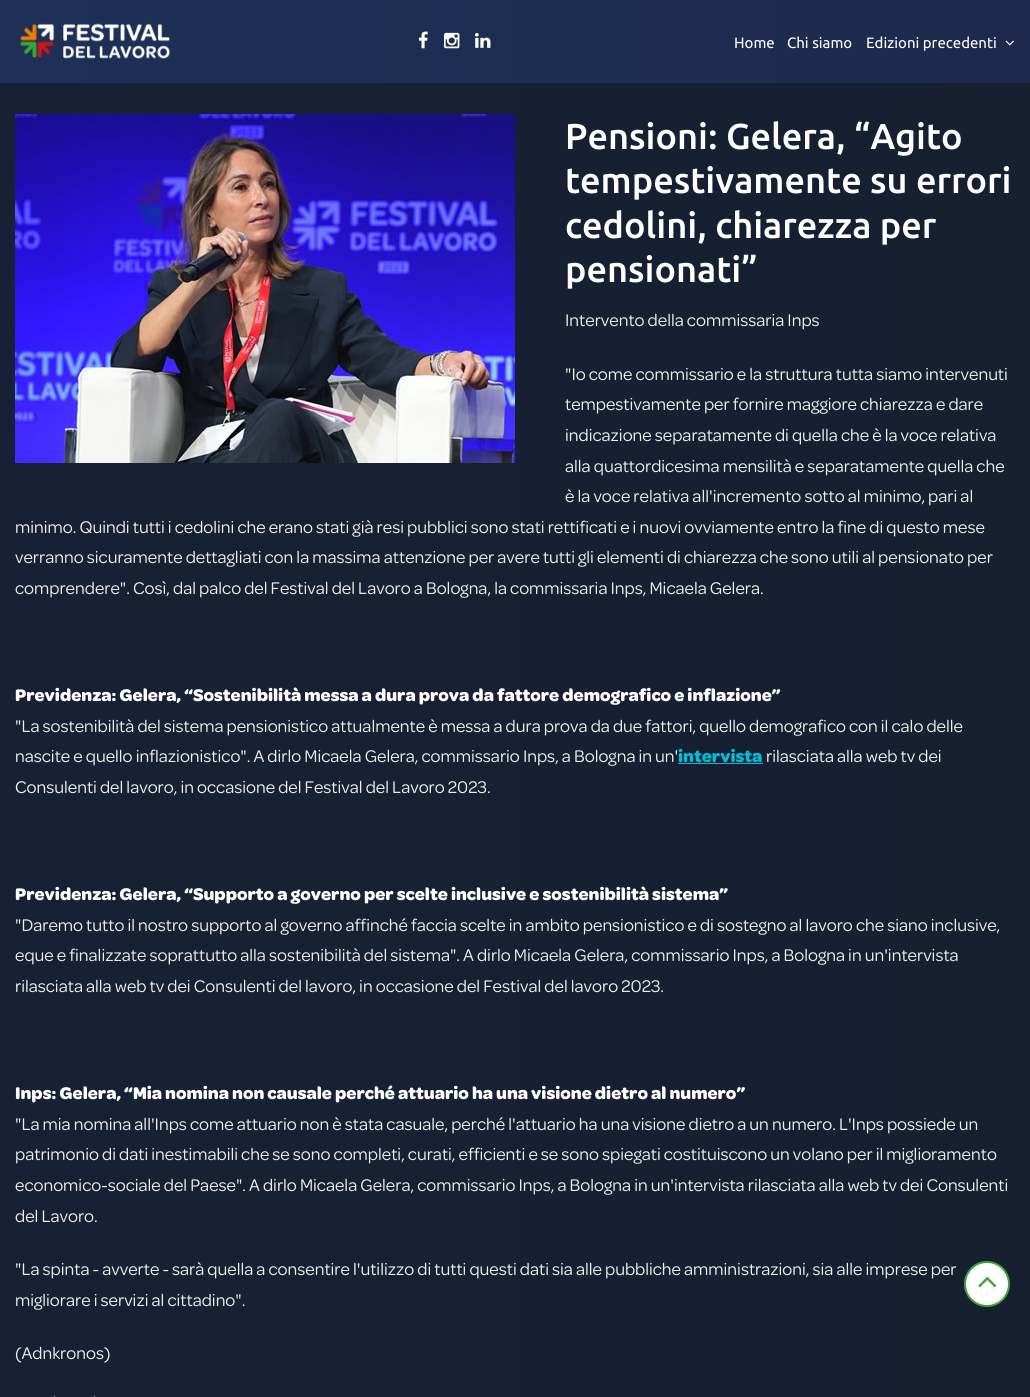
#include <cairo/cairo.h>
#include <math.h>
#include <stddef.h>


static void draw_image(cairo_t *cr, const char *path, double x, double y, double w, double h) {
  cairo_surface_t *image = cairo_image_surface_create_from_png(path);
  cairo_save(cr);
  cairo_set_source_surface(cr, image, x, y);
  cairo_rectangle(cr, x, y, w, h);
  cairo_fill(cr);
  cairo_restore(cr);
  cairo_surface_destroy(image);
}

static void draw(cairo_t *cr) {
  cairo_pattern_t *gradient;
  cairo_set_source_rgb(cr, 1, 1, 1);
  cairo_paint(cr);
  gradient = cairo_pattern_create_linear(0, 840, 1030, 840);
  cairo_pattern_add_color_stop_rgba(gradient, 0, 23 / 255.0, 33 / 255.0, 53 / 255.0, 1);
  cairo_pattern_add_color_stop_rgba(gradient, 1, 23 / 255.0, 32 / 255.0, 49 / 255.0, 1);
  cairo_set_source(cr, gradient);
  cairo_pattern_destroy(gradient);
  cairo_rectangle(cr, 0, 83, 1030, 1314);
  cairo_fill(cr);
  gradient = cairo_pattern_create_linear(0, 42, 1030, 41);
  cairo_pattern_add_color_stop_rgba(gradient, 0, 30 / 255.0, 48 / 255.0, 88 / 255.0, 1);
  cairo_pattern_add_color_stop_rgba(gradient, 1, 29 / 255.0, 42 / 255.0, 76 / 255.0, 1);
  cairo_set_source(cr, gradient);
  cairo_pattern_destroy(gradient);
  cairo_rectangle(cr, 0, 0, 1030, 83);
  cairo_fill(cr);
  draw_image(cr, "images/1.png", 20, 23, 150, 36);
  draw_image(cr, "images/2.png", 418, 31, 10, 18);
  draw_image(cr, "images/3.png", 444, 32, 16, 17);
  draw_image(cr, "images/4.png", 475, 33, 16, 15);
  draw_image(cr, "images/5.png", 1005, 40, 9, 6);
  draw_image(cr, "images/6.png", 15, 114, 500, 349);
  cairo_set_source_rgb(cr, 0, 188 / 255.0, 212 / 255.0);
  cairo_rectangle(cr, 678, 763, 85, 1);
  cairo_fill(cr);
  cairo_set_source_rgb(cr, 124 / 255.0, 129 / 255.0, 139 / 255.0);
  cairo_new_path(cr);
  cairo_move_to(cr, 54, 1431);
  cairo_line_to(cr, 54, 1395);
  cairo_line_to(cr, 55, 1396);
  cairo_line_to(cr, 55, 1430);
  cairo_close_path(cr);
  cairo_move_to(cr, 94, 1395);
  cairo_line_to(cr, 94, 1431);
  cairo_line_to(cr, 95, 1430);
  cairo_line_to(cr, 95, 1396);
  cairo_close_path(cr);
  cairo_fill(cr);
  cairo_set_source_rgb(cr, 1, 1, 1);
  cairo_arc(cr, 987, 1284, 22, 0, 2 * M_PI);
  cairo_fill_preserve(cr);
  cairo_set_source_rgb(cr, 63 / 255.0, 165 / 255.0, 53 / 255.0);
  cairo_stroke(cr);
  draw_image(cr, "images/7.png", 978, 1276, 19, 12);
  cairo_select_font_face(cr, "Ubuntu", CAIRO_FONT_SLANT_NORMAL, CAIRO_FONT_WEIGHT_NORMAL);
  cairo_set_font_size(cr, 15);
  cairo_set_source_rgb(cr, 1, 1, 1);
  cairo_move_to(cr, 734, 48);
  cairo_show_text(cr, "Home");
  cairo_move_to(cr, 787, 48);
  cairo_show_text(cr, "Chi siamo");
  cairo_move_to(cr, 866, 48);
  cairo_show_text(cr, "Edizioni precedenti");
  cairo_select_font_face(cr, "Ubuntu Medium", CAIRO_FONT_SLANT_NORMAL, CAIRO_FONT_WEIGHT_NORMAL);
  cairo_set_font_size(cr, 36);
  cairo_move_to(cr, 565, 149);
  cairo_show_text(cr, "Pensioni: Gelera, “Agito");
  cairo_move_to(cr, 565, 193);
  cairo_show_text(cr, "tempestivamente su errori");
  cairo_move_to(cr, 565, 238);
  cairo_show_text(cr, "cedolini, chiarezza per");
  cairo_move_to(cr, 565, 282);
  cairo_show_text(cr, "pensionati”");
  cairo_select_font_face(cr, "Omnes", CAIRO_FONT_SLANT_NORMAL, CAIRO_FONT_WEIGHT_NORMAL);
  cairo_set_font_size(cr, 18);
  cairo_set_source_rgb(cr, 238 / 255.0, 238 / 255.0, 238 / 255.0);
  cairo_move_to(cr, 565, 326);
  cairo_show_text(cr, "Intervento della commissaria Inps");
  cairo_move_to(cr, 565, 380);
  cairo_show_text(cr, "\"Io come commissario e la struttura tutta siamo intervenuti");
  cairo_move_to(cr, 565, 410);
  cairo_show_text(cr, "tempestivamente per fornire maggiore chiarezza e dare");
  cairo_move_to(cr, 565, 441);
  cairo_show_text(cr, "indicazione separatamente di quella che è la voce relativa");
  cairo_move_to(cr, 565, 472);
  cairo_show_text(cr, "alla quattordicesima mensilità e separatamente quella che");
  cairo_move_to(cr, 565, 502);
  cairo_show_text(cr, "è la voce relativa all'incremento sotto al minimo, pari al");
  cairo_move_to(cr, 15, 533);
  cairo_show_text(cr, "minimo. Quindi tutti i cedolini che erano stati già resi pubblici sono stati rettificati e i nuovi ovviamente entro la fine di questo mese");
  cairo_move_to(cr, 15, 563);
  cairo_show_text(cr, "verranno sicuramente dettagliati con la massima attenzione per avere tutti gli elementi di chiarezza che sono utili al pensionato per");
  cairo_move_to(cr, 15, 594);
  cairo_show_text(cr, "comprendere\". Così, dal palco del Festival del Lavoro a Bologna, la commissaria Inps, Micaela Gelera.");
  cairo_select_font_face(cr, "Omnes", CAIRO_FONT_SLANT_NORMAL, CAIRO_FONT_WEIGHT_BOLD);
  cairo_set_source_rgb(cr, 1, 1, 1);
  cairo_move_to(cr, 15, 701);
  cairo_show_text(cr, "Previdenza: Gelera, “Sostenibilità messa a dura prova da fattore demografico e inflazione”");
  cairo_select_font_face(cr, "Omnes", CAIRO_FONT_SLANT_NORMAL, CAIRO_FONT_WEIGHT_NORMAL);
  cairo_set_source_rgb(cr, 238 / 255.0, 238 / 255.0, 238 / 255.0);
  cairo_move_to(cr, 15, 732);
  cairo_show_text(cr, "\"La sostenibilità del sistema pensionistico attualmente è messa a dura prova da due fattori, quello demografico con il calo delle");
  cairo_move_to(cr, 15, 762);
  cairo_show_text(cr, "nascite e quello inflazionistico\". A dirlo Micaela Gelera, commissario Inps, a Bologna in un'");
  cairo_select_font_face(cr, "Omnes", CAIRO_FONT_SLANT_NORMAL, CAIRO_FONT_WEIGHT_BOLD);
  cairo_set_source_rgb(cr, 0, 188 / 255.0, 212 / 255.0);
  cairo_move_to(cr, 678, 762);
  cairo_show_text(cr, "intervista");
  cairo_select_font_face(cr, "Omnes", CAIRO_FONT_SLANT_NORMAL, CAIRO_FONT_WEIGHT_NORMAL);
  cairo_set_source_rgb(cr, 238 / 255.0, 238 / 255.0, 238 / 255.0);
  cairo_move_to(cr, 766, 762);
  cairo_show_text(cr, "rilasciata alla web tv dei");
  cairo_move_to(cr, 15, 793);
  cairo_show_text(cr, "Consulenti del lavoro, in occasione del Festival del Lavoro 2023.");
  cairo_select_font_face(cr, "Omnes", CAIRO_FONT_SLANT_NORMAL, CAIRO_FONT_WEIGHT_BOLD);
  cairo_set_source_rgb(cr, 1, 1, 1);
  cairo_move_to(cr, 15, 900);
  cairo_show_text(cr, "Previdenza: Gelera, “Supporto a governo per scelte inclusive e sostenibilità sistema”");
  cairo_select_font_face(cr, "Omnes", CAIRO_FONT_SLANT_NORMAL, CAIRO_FONT_WEIGHT_NORMAL);
  cairo_set_source_rgb(cr, 238 / 255.0, 238 / 255.0, 238 / 255.0);
  cairo_move_to(cr, 15, 931);
  cairo_show_text(cr, "\"Daremo tutto il nostro supporto al governo affinché faccia scelte in ambito pensionistico e di sostegno al lavoro che siano inclusive,");
  cairo_move_to(cr, 15, 961);
  cairo_show_text(cr, "eque e finalizzate soprattutto alla sostenibilità del sistema\". A dirlo Micaela Gelera, commissario Inps, a Bologna in un'intervista");
  cairo_move_to(cr, 15, 992);
  cairo_show_text(cr, "rilasciata alla web tv dei Consulenti del lavoro, in occasione del Festival del lavoro 2023.");
  cairo_select_font_face(cr, "Omnes", CAIRO_FONT_SLANT_NORMAL, CAIRO_FONT_WEIGHT_BOLD);
  cairo_set_source_rgb(cr, 1, 1, 1);
  cairo_move_to(cr, 15, 1099);
  cairo_show_text(cr, "Inps: Gelera, “Mia nomina non causale perché attuario ha una visione dietro al numero”");
  cairo_select_font_face(cr, "Omnes", CAIRO_FONT_SLANT_NORMAL, CAIRO_FONT_WEIGHT_NORMAL);
  cairo_set_source_rgb(cr, 238 / 255.0, 238 / 255.0, 238 / 255.0);
  cairo_move_to(cr, 15, 1130);
  cairo_show_text(cr, "\"La mia nomina all'Inps come attuario non è stata casuale, perché l'attuario ha una visione dietro a un numero. L'Inps possiede un");
  cairo_move_to(cr, 15, 1160);
  cairo_show_text(cr, "patrimonio di dati inestimabili che se sono completi, curati, efficienti e se sono spiegati costituiscono un volano per il miglioramento");
  cairo_move_to(cr, 15, 1191);
  cairo_show_text(cr, "economico-sociale del Paese\". A dirlo Micaela Gelera, commissario Inps, a Bologna in un'intervista rilasciata alla web tv dei Consulenti");
  cairo_move_to(cr, 15, 1222);
  cairo_show_text(cr, "del Lavoro.");
  cairo_move_to(cr, 15, 1275);
  cairo_show_text(cr, "\"La spinta - avverte - sarà quella a consentire l'utilizzo di tutti questi dati sia alle pubbliche amministrazioni, sia alle imprese per");
  cairo_move_to(cr, 15, 1306);
  cairo_show_text(cr, "migliorare i servizi al cittadino\".");
  cairo_move_to(cr, 15, 1359);
  cairo_show_text(cr, "(Adnkronos)");
}

int main(void) {
  cairo_surface_t *surface = cairo_image_surface_create(CAIRO_FORMAT_RGB24, 1030, 1397);
  cairo_t *cr = cairo_create(surface);
  cairo_font_options_t *options = cairo_font_options_create();
  cairo_font_options_set_hint_metrics(options, CAIRO_HINT_METRICS_OFF);
  cairo_font_options_set_hint_style(options, CAIRO_HINT_STYLE_NONE);
  cairo_set_font_options(cr, options);
  cairo_set_miter_limit(cr, 4);
  draw(cr);
  cairo_surface_write_to_png(surface, "out.png");
  cairo_font_options_destroy(options);
  cairo_destroy(cr);
  cairo_surface_destroy(surface);
  return 0;
}
